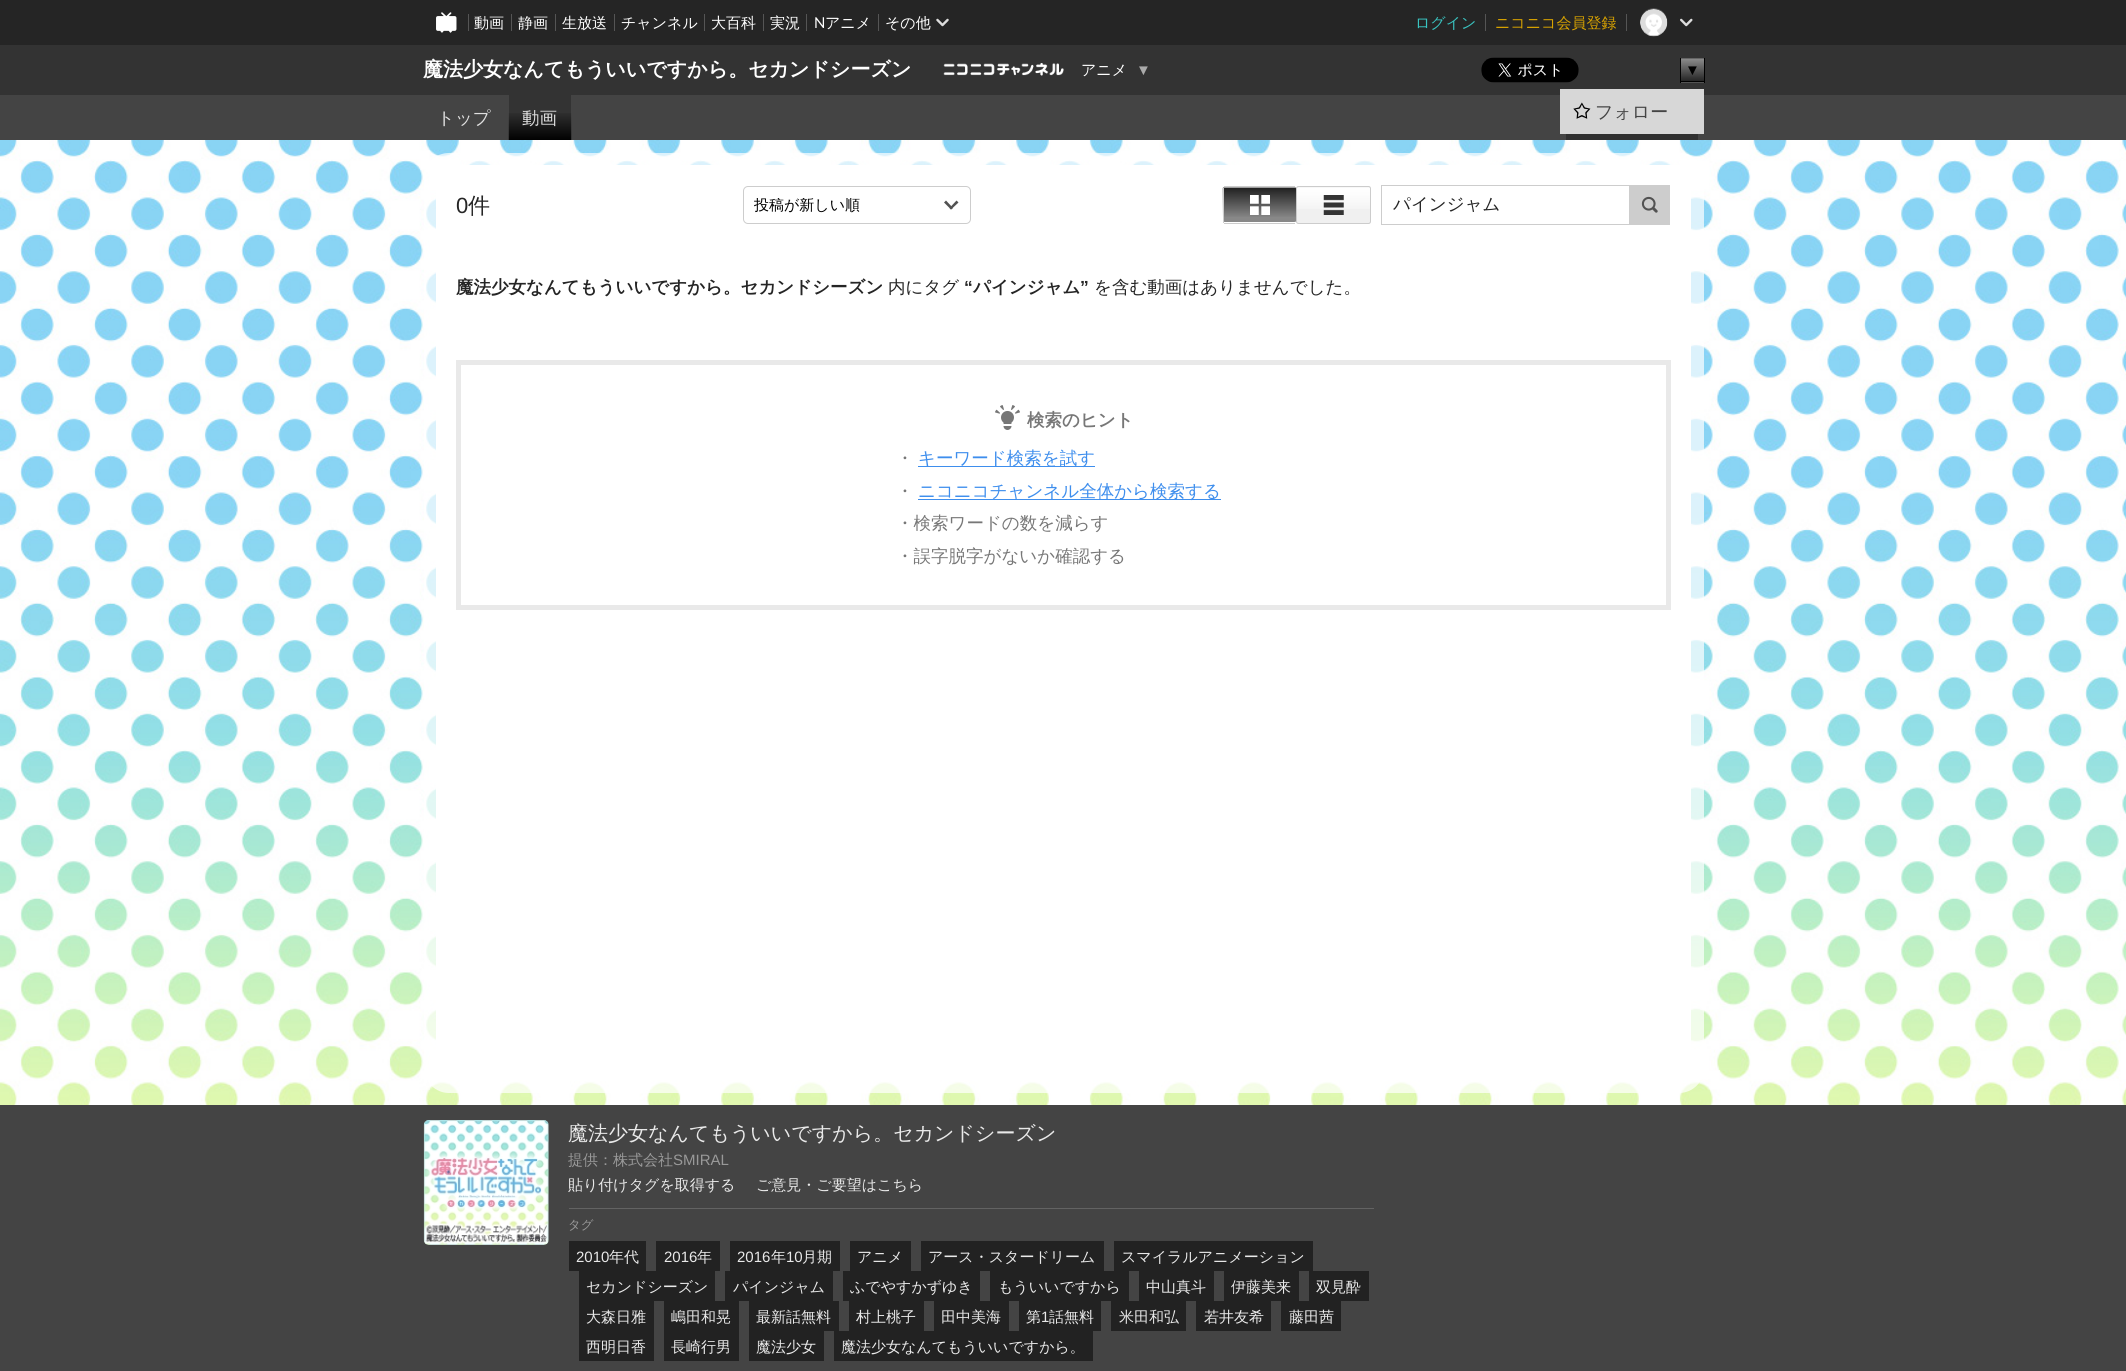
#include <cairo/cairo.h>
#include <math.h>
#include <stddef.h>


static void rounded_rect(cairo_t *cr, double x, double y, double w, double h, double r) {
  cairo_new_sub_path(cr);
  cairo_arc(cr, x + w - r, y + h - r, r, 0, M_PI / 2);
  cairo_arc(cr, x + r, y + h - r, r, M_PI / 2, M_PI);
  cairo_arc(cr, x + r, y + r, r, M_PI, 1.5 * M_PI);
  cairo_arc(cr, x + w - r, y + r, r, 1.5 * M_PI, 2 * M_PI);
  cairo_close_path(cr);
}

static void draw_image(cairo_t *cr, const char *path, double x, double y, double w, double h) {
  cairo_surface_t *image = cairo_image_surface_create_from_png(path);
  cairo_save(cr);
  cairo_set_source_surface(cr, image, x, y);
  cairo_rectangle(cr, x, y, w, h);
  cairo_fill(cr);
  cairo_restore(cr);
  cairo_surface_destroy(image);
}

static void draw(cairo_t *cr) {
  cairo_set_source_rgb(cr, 1, 1, 1);
  cairo_paint(cr);
  cairo_set_source_rgb(cr, 37 / 255.0, 37 / 255.0, 37 / 255.0);
  cairo_rectangle(cr, 0, 0, 2126, 45);
  cairo_fill(cr);
  draw_image(cr, "images/1.png", 436, 12, 21, 21);
  cairo_set_source_rgb(cr, 85 / 255.0, 85 / 255.0, 85 / 255.0);
  cairo_rectangle(cr, 468, 14, 1, 17);
  cairo_fill(cr);
  cairo_rectangle(cr, 511, 14, 1, 17);
  cairo_fill(cr);
  cairo_rectangle(cr, 555, 14, 1, 17);
  cairo_fill(cr);
  cairo_rectangle(cr, 614, 14, 1, 17);
  cairo_fill(cr);
  cairo_rectangle(cr, 704, 14, 1, 17);
  cairo_fill(cr);
  cairo_rectangle(cr, 763, 14, 1, 17);
  cairo_fill(cr);
  cairo_rectangle(cr, 806, 14, 1, 17);
  cairo_fill(cr);
  cairo_rectangle(cr, 878, 14, 1, 17);
  cairo_fill(cr);
  draw_image(cr, "images/2.png", 936, 18, 13, 9);
  cairo_rectangle(cr, 1485, 14, 1, 17);
  cairo_fill(cr);
  cairo_rectangle(cr, 1626, 14, 1, 17);
  cairo_fill(cr);
  draw_image(cr, "images/3.png", 1640, 8, 28, 29);
  draw_image(cr, "images/4.png", 1680, 18, 13, 9);
  cairo_set_source_rgb(cr, 51 / 255.0, 51 / 255.0, 51 / 255.0);
  cairo_rectangle(cr, 0, 45, 2126, 50);
  cairo_fill(cr);
  draw_image(cr, "images/5.png", 943, 63, 121, 13);
  draw_image(cr, "images/6.png", 1481, 57, 98, 26);
  cairo_set_source_rgb(cr, 136 / 255.0, 136 / 255.0, 136 / 255.0);
  cairo_rectangle(cr, 1681, 59, 23, 24);
  cairo_fill(cr);
  draw_image(cr, "images/7.png", 1681, 60, 23, 23);
  cairo_set_source_rgb(cr, 102 / 255.0, 102 / 255.0, 102 / 255.0);
  cairo_rectangle(cr, 1680, 58, 25, 1);
  cairo_fill(cr);
  cairo_set_source_rgb(cr, 0, 0, 0);
  cairo_rectangle(cr, 1704, 58, 1, 25);
  cairo_fill(cr);
  cairo_rectangle(cr, 1680, 81, 25, 1);
  cairo_fill(cr);
  cairo_rectangle(cr, 1680, 58, 1, 25);
  cairo_fill(cr);
  cairo_set_source_rgb(cr, 68 / 255.0, 68 / 255.0, 68 / 255.0);
  cairo_rectangle(cr, 0, 95, 2126, 45);
  cairo_fill(cr);
  cairo_set_source_rgb(cr, 51 / 255.0, 51 / 255.0, 51 / 255.0);
  cairo_rectangle(cr, 509, 95, 62, 45);
  cairo_fill(cr);
  draw_image(cr, "images/8.png", 508, 113, 64, 27);
  cairo_set_source_rgb(cr, 48 / 255.0, 48 / 255.0, 48 / 255.0);
  cairo_rectangle(cr, 1566, 134, 132, 6);
  cairo_fill(cr);
  cairo_set_source_rgb(cr, 215 / 255.0, 215 / 255.0, 215 / 255.0);
  cairo_rectangle(cr, 1560, 89, 144, 45);
  cairo_fill(cr);
  draw_image(cr, "images/9.png", 1573, 102, 18, 17);
  draw_image(cr, "images/10.png", 0, 140, 2126, 965);
  cairo_set_source_rgba(cr, 1, 1, 1, 0.7);
  rounded_rect(cr, 424, 153, 1280, 940, 25);
  cairo_fill(cr);
  cairo_set_source_rgb(cr, 1, 1, 1);
  rounded_rect(cr, 436, 165, 1255, 915, 13);
  cairo_fill(cr);
  rounded_rect(cr, 743.5, 186.5, 227, 37, 4.5);
  cairo_set_source_rgb(cr, 205 / 255.0, 205 / 255.0, 205 / 255.0);
  cairo_set_line_width(cr, 1);
  cairo_stroke(cr);
  cairo_set_source_rgb(cr, 82 / 255.0, 82 / 255.0, 82 / 255.0);
  cairo_new_path(cr);
  cairo_move_to(cr, 956.5, 200.5);
  cairo_line_to(cr, 958.5, 202.5);
  cairo_line_to(cr, 951, 209.5);
  cairo_line_to(cr, 949.5, 208);
  cairo_close_path(cr);
  cairo_fill(cr);
  cairo_new_path(cr);
  cairo_move_to(cr, 946, 200.5);
  cairo_line_to(cr, 953, 208);
  cairo_line_to(cr, 951, 209.5);
  cairo_line_to(cr, 944, 202.5);
  cairo_close_path(cr);
  cairo_fill(cr);
  cairo_set_source_rgb(cr, 136 / 255.0, 136 / 255.0, 136 / 255.0);
  cairo_new_path(cr);
  cairo_move_to(cr, 1225, 188);
  cairo_line_to(cr, 1294, 188);
  cairo_curve_to(cr, 1295, 188, 1296, 188, 1296, 189);
  cairo_line_to(cr, 1296, 221);
  cairo_curve_to(cr, 1296, 222, 1295, 222, 1294, 222);
  cairo_line_to(cr, 1225, 222);
  cairo_curve_to(cr, 1224, 222, 1224, 222, 1224, 221);
  cairo_line_to(cr, 1224, 189);
  cairo_curve_to(cr, 1224, 188, 1224, 188, 1225, 188);
  cairo_close_path(cr);
  cairo_fill(cr);
  draw_image(cr, "images/11.png", 1222, 187, 75, 30);
  cairo_set_source_rgb(cr, 204 / 255.0, 204 / 255.0, 204 / 255.0);
  cairo_rectangle(cr, 1224, 186, 71, 1);
  cairo_fill(cr);
  cairo_rectangle(cr, 1224, 223, 71, 1);
  cairo_fill(cr);
  cairo_rectangle(cr, 1223, 188, 1, 35);
  cairo_fill(cr);
  draw_image(cr, "images/12.png", 1250, 195, 20, 20);
  cairo_set_source_rgb(cr, 240 / 255.0, 240 / 255.0, 240 / 255.0);
  rounded_rect(cr, 1296, 186, 75, 38, 2.5);
  cairo_fill(cr);
  draw_image(cr, "images/13.png", 1296, 187, 75, 22);
  rounded_rect(cr, 1296.5, 186.5, 74, 37, 2);
  cairo_set_source_rgb(cr, 204 / 255.0, 204 / 255.0, 204 / 255.0);
  cairo_stroke(cr);
  draw_image(cr, "images/14.png", 1323, 195, 21, 20);
  cairo_rectangle(cr, 1381.5, 185.5, 248, 39);
  cairo_set_source_rgb(cr, 205 / 255.0, 205 / 255.0, 205 / 255.0);
  cairo_stroke(cr);
  cairo_rectangle(cr, 1630, 185, 40, 40);
  cairo_fill(cr);
  draw_image(cr, "images/15.png", 1641, 196, 17, 17);
  cairo_rectangle(cr, 458.5, 362.5, 1210, 245);
  cairo_set_source_rgb(cr, 233 / 255.0, 233 / 255.0, 233 / 255.0);
  cairo_set_line_width(cr, 5);
  cairo_stroke(cr);
  draw_image(cr, "images/16.png", 995, 405, 25, 25);
  cairo_set_source_rgb(cr, 62 / 255.0, 142 / 255.0, 237 / 255.0);
  cairo_rectangle(cr, 918, 466, 177, 1);
  cairo_fill(cr);
  cairo_rectangle(cr, 918, 499, 303, 1);
  cairo_fill(cr);
  cairo_set_source_rgb(cr, 68 / 255.0, 68 / 255.0, 68 / 255.0);
  cairo_rectangle(cr, 0, 1105, 2126, 266);
  cairo_fill(cr);
  draw_image(cr, "images/17.png", 423, 1120, 126, 125);
  cairo_set_source_rgb(cr, 99 / 255.0, 99 / 255.0, 99 / 255.0);
  cairo_rectangle(cr, 569, 1208, 805, 1);
  cairo_fill(cr);
  cairo_set_source_rgb(cr, 34 / 255.0, 34 / 255.0, 34 / 255.0);
  cairo_rectangle(cr, 569, 1241, 77, 30);
  cairo_fill(cr);
  cairo_rectangle(cr, 656, 1241, 64, 30);
  cairo_fill(cr);
  cairo_rectangle(cr, 730, 1241, 110, 30);
  cairo_fill(cr);
  cairo_rectangle(cr, 850, 1241, 61, 30);
  cairo_fill(cr);
  cairo_rectangle(cr, 921, 1241, 183, 30);
  cairo_fill(cr);
  cairo_rectangle(cr, 1114, 1241, 199, 30);
  cairo_fill(cr);
  cairo_rectangle(cr, 579, 1271, 136, 30);
  cairo_fill(cr);
  cairo_rectangle(cr, 725, 1271, 108, 30);
  cairo_fill(cr);
  cairo_rectangle(cr, 843, 1271, 137, 30);
  cairo_fill(cr);
  cairo_rectangle(cr, 990, 1271, 139, 30);
  cairo_fill(cr);
  cairo_rectangle(cr, 1139, 1271, 75, 30);
  cairo_fill(cr);
  cairo_rectangle(cr, 1224, 1271, 75, 30);
  cairo_fill(cr);
  cairo_rectangle(cr, 1309, 1271, 60, 30);
  cairo_fill(cr);
  cairo_rectangle(cr, 579, 1301, 75, 60);
  cairo_fill(cr);
  cairo_rectangle(cr, 664, 1301, 75, 60);
  cairo_fill(cr);
  cairo_rectangle(cr, 749, 1301, 90, 30);
  cairo_fill(cr);
  cairo_rectangle(cr, 849, 1301, 75, 30);
  cairo_fill(cr);
  cairo_rectangle(cr, 934, 1301, 75, 30);
  cairo_fill(cr);
  cairo_rectangle(cr, 1019, 1301, 82, 30);
  cairo_fill(cr);
  cairo_rectangle(cr, 1111, 1301, 75, 30);
  cairo_fill(cr);
  cairo_rectangle(cr, 1196, 1301, 75, 30);
  cairo_fill(cr);
  cairo_rectangle(cr, 1281, 1301, 60, 30);
  cairo_fill(cr);
  cairo_rectangle(cr, 749, 1331, 75, 30);
  cairo_fill(cr);
  cairo_rectangle(cr, 834, 1331, 259, 30);
  cairo_fill(cr);
  cairo_select_font_face(cr, "WenQuanYi Zen Hei Medium", CAIRO_FONT_SLANT_NORMAL, CAIRO_FONT_WEIGHT_NORMAL);
  cairo_set_font_size(cr, 15);
  cairo_set_source_rgb(cr, 1, 1, 1);
  cairo_move_to(cr, 474, 28);
  cairo_show_text(cr, "動画");
  cairo_move_to(cr, 518, 28);
  cairo_show_text(cr, "静画");
  cairo_move_to(cr, 562, 28);
  cairo_show_text(cr, "生放送");
  cairo_move_to(cr, 621, 28);
  cairo_show_text(cr, "チャンネル");
  cairo_move_to(cr, 711, 28);
  cairo_show_text(cr, "大百科");
  cairo_move_to(cr, 770, 28);
  cairo_show_text(cr, "実況");
  cairo_select_font_face(cr, "Lato", CAIRO_FONT_SLANT_NORMAL, CAIRO_FONT_WEIGHT_NORMAL);
  cairo_move_to(cr, 814, 28);
  cairo_show_text(cr, "N");
  cairo_select_font_face(cr, "WenQuanYi Zen Hei Medium", CAIRO_FONT_SLANT_NORMAL, CAIRO_FONT_WEIGHT_NORMAL);
  cairo_move_to(cr, 825, 28);
  cairo_show_text(cr, "アニメ");
  cairo_move_to(cr, 885, 28);
  cairo_show_text(cr, "その他");
  cairo_set_source_rgb(cr, 57 / 255.0, 196 / 255.0, 193 / 255.0);
  cairo_move_to(cr, 1415, 28);
  cairo_show_text(cr, "ログイン");
  cairo_set_source_rgb(cr, 217 / 255.0, 163 / 255.0, 0);
  cairo_move_to(cr, 1495, 28);
  cairo_show_text(cr, "ニコニコ会員登録");
  cairo_select_font_face(cr, "WenQuanYi Zen Hei", CAIRO_FONT_SLANT_NORMAL, CAIRO_FONT_WEIGHT_BOLD);
  cairo_set_font_size(cr, 20);
  cairo_set_source_rgb(cr, 1, 1, 1);
  cairo_move_to(cr, 423, 76);
  cairo_show_text(cr, "魔法少女なんてもういいですから。セカンドシーズン");
  cairo_select_font_face(cr, "WenQuanYi Zen Hei Medium", CAIRO_FONT_SLANT_NORMAL, CAIRO_FONT_WEIGHT_NORMAL);
  cairo_set_font_size(cr, 15);
  cairo_move_to(cr, 1081, 75);
  cairo_show_text(cr, "アニメ");
  cairo_select_font_face(cr, "Liberation Sans", CAIRO_FONT_SLANT_NORMAL, CAIRO_FONT_WEIGHT_NORMAL);
  cairo_set_source_rgb(cr, 170 / 255.0, 170 / 255.0, 170 / 255.0);
  cairo_move_to(cr, 1136, 75);
  cairo_show_text(cr, "▼");
  cairo_set_source_rgb(cr, 0, 0, 0);
  cairo_move_to(cr, 1685, 75);
  cairo_show_text(cr, "▼");
  cairo_select_font_face(cr, "WenQuanYi Zen Hei Medium", CAIRO_FONT_SLANT_NORMAL, CAIRO_FONT_WEIGHT_NORMAL);
  cairo_set_font_size(cr, 17.5);
  cairo_set_source_rgb(cr, 224 / 255.0, 224 / 255.0, 224 / 255.0);
  cairo_move_to(cr, 437, 124);
  cairo_show_text(cr, "トップ");
  cairo_move_to(cr, 522, 124);
  cairo_show_text(cr, "動画");
  cairo_set_font_size(cr, 18);
  cairo_set_source_rgb(cr, 68 / 255.0, 68 / 255.0, 68 / 255.0);
  cairo_move_to(cr, 1595, 118);
  cairo_show_text(cr, "フォロー");
  cairo_select_font_face(cr, "Liberation Sans", CAIRO_FONT_SLANT_NORMAL, CAIRO_FONT_WEIGHT_NORMAL);
  cairo_set_font_size(cr, 22);
  cairo_set_source_rgb(cr, 37 / 255.0, 37 / 255.0, 37 / 255.0);
  cairo_move_to(cr, 456, 213);
  cairo_show_text(cr, "0");
  cairo_select_font_face(cr, "WenQuanYi Zen Hei Medium", CAIRO_FONT_SLANT_NORMAL, CAIRO_FONT_WEIGHT_NORMAL);
  cairo_move_to(cr, 468, 213);
  cairo_show_text(cr, "件");
  cairo_save(cr);
  cairo_rectangle(cr, 754, 198, 184, 15);
  cairo_clip(cr);
  cairo_set_font_size(cr, 15);
  cairo_set_source_rgb(cr, 0, 0, 0);
  cairo_move_to(cr, 754, 210);
  cairo_show_text(cr, "投稿が新しい順");
  cairo_restore(cr);
  cairo_set_font_size(cr, 17.5);
  cairo_move_to(cr, 1393, 210);
  cairo_show_text(cr, "パインジャム");
  cairo_select_font_face(cr, "WenQuanYi Zen Hei", CAIRO_FONT_SLANT_NORMAL, CAIRO_FONT_WEIGHT_BOLD);
  cairo_move_to(cr, 456, 293);
  cairo_show_text(cr, "魔法少女なんてもういいですから。セカンドシーズン");
  cairo_select_font_face(cr, "WenQuanYi Zen Hei Medium", CAIRO_FONT_SLANT_NORMAL, CAIRO_FONT_WEIGHT_NORMAL);
  cairo_move_to(cr, 888, 293);
  cairo_show_text(cr, "内にタグ");
  cairo_select_font_face(cr, "Liberation Sans", CAIRO_FONT_SLANT_NORMAL, CAIRO_FONT_WEIGHT_BOLD);
  cairo_move_to(cr, 964, 293);
  cairo_show_text(cr, "“");
  cairo_select_font_face(cr, "WenQuanYi Zen Hei", CAIRO_FONT_SLANT_NORMAL, CAIRO_FONT_WEIGHT_BOLD);
  cairo_move_to(cr, 973, 293);
  cairo_show_text(cr, "パインジャム");
  cairo_select_font_face(cr, "Liberation Sans", CAIRO_FONT_SLANT_NORMAL, CAIRO_FONT_WEIGHT_BOLD);
  cairo_move_to(cr, 1080, 293);
  cairo_show_text(cr, "”");
  cairo_select_font_face(cr, "WenQuanYi Zen Hei Medium", CAIRO_FONT_SLANT_NORMAL, CAIRO_FONT_WEIGHT_NORMAL);
  cairo_move_to(cr, 1094, 293);
  cairo_show_text(cr, "を含む動画はありませんでした。");
  cairo_select_font_face(cr, "WenQuanYi Zen Hei", CAIRO_FONT_SLANT_NORMAL, CAIRO_FONT_WEIGHT_BOLD);
  cairo_set_source_rgb(cr, 119 / 255.0, 119 / 255.0, 119 / 255.0);
  cairo_move_to(cr, 1027, 426);
  cairo_show_text(cr, "検索のヒント");
  cairo_select_font_face(cr, "WenQuanYi Zen Hei Medium", CAIRO_FONT_SLANT_NORMAL, CAIRO_FONT_WEIGHT_NORMAL);
  cairo_move_to(cr, 896, 464);
  cairo_show_text(cr, "・");
  cairo_set_source_rgb(cr, 62 / 255.0, 142 / 255.0, 237 / 255.0);
  cairo_move_to(cr, 918, 464);
  cairo_show_text(cr, "キーワード検索を試す");
  cairo_set_source_rgb(cr, 119 / 255.0, 119 / 255.0, 119 / 255.0);
  cairo_move_to(cr, 896, 497);
  cairo_show_text(cr, "・");
  cairo_set_source_rgb(cr, 62 / 255.0, 142 / 255.0, 237 / 255.0);
  cairo_move_to(cr, 918, 497);
  cairo_show_text(cr, "ニコニコチャンネル全体から検索する");
  cairo_set_source_rgb(cr, 119 / 255.0, 119 / 255.0, 119 / 255.0);
  cairo_move_to(cr, 896, 529);
  cairo_show_text(cr, "・検索ワードの数を減らす");
  cairo_move_to(cr, 896, 562);
  cairo_show_text(cr, "・誤字脱字がないか確認する");
  cairo_set_font_size(cr, 20);
  cairo_set_source_rgb(cr, 233 / 255.0, 233 / 255.0, 233 / 255.0);
  cairo_move_to(cr, 568, 1140);
  cairo_show_text(cr, "魔法少女なんてもういいですから。セカンドシーズン");
  cairo_set_font_size(cr, 15);
  cairo_set_source_rgb(cr, 153 / 255.0, 153 / 255.0, 153 / 255.0);
  cairo_move_to(cr, 568, 1165);
  cairo_show_text(cr, "提供：株式会社");
  cairo_select_font_face(cr, "Liberation Sans", CAIRO_FONT_SLANT_NORMAL, CAIRO_FONT_WEIGHT_NORMAL);
  cairo_move_to(cr, 673, 1165);
  cairo_show_text(cr, "SMIRAL");
  cairo_select_font_face(cr, "WenQuanYi Zen Hei Medium", CAIRO_FONT_SLANT_NORMAL, CAIRO_FONT_WEIGHT_NORMAL);
  cairo_set_source_rgb(cr, 233 / 255.0, 233 / 255.0, 233 / 255.0);
  cairo_move_to(cr, 568, 1190);
  cairo_show_text(cr, "貼り付けタグを取得する");
  cairo_move_to(cr, 756, 1190);
  cairo_show_text(cr, "ご意見・ご要望はこちら");
  cairo_set_font_size(cr, 12.5);
  cairo_set_source_rgb(cr, 153 / 255.0, 153 / 255.0, 153 / 255.0);
  cairo_move_to(cr, 568, 1229);
  cairo_show_text(cr, "タグ");
  cairo_select_font_face(cr, "Liberation Sans", CAIRO_FONT_SLANT_NORMAL, CAIRO_FONT_WEIGHT_NORMAL);
  cairo_set_font_size(cr, 15);
  cairo_set_source_rgb(cr, 233 / 255.0, 233 / 255.0, 233 / 255.0);
  cairo_move_to(cr, 576, 1262);
  cairo_show_text(cr, "2010");
  cairo_select_font_face(cr, "WenQuanYi Zen Hei Medium", CAIRO_FONT_SLANT_NORMAL, CAIRO_FONT_WEIGHT_NORMAL);
  cairo_move_to(cr, 609, 1262);
  cairo_show_text(cr, "年代");
  cairo_select_font_face(cr, "Liberation Sans", CAIRO_FONT_SLANT_NORMAL, CAIRO_FONT_WEIGHT_NORMAL);
  cairo_move_to(cr, 664, 1262);
  cairo_show_text(cr, "2016");
  cairo_select_font_face(cr, "WenQuanYi Zen Hei Medium", CAIRO_FONT_SLANT_NORMAL, CAIRO_FONT_WEIGHT_NORMAL);
  cairo_move_to(cr, 697, 1262);
  cairo_show_text(cr, "年");
  cairo_select_font_face(cr, "Liberation Sans", CAIRO_FONT_SLANT_NORMAL, CAIRO_FONT_WEIGHT_NORMAL);
  cairo_move_to(cr, 737, 1262);
  cairo_show_text(cr, "2016");
  cairo_select_font_face(cr, "WenQuanYi Zen Hei Medium", CAIRO_FONT_SLANT_NORMAL, CAIRO_FONT_WEIGHT_NORMAL);
  cairo_move_to(cr, 771, 1262);
  cairo_show_text(cr, "年");
  cairo_select_font_face(cr, "Liberation Sans", CAIRO_FONT_SLANT_NORMAL, CAIRO_FONT_WEIGHT_NORMAL);
  cairo_move_to(cr, 786, 1262);
  cairo_show_text(cr, "10");
  cairo_select_font_face(cr, "WenQuanYi Zen Hei Medium", CAIRO_FONT_SLANT_NORMAL, CAIRO_FONT_WEIGHT_NORMAL);
  cairo_move_to(cr, 802, 1262);
  cairo_show_text(cr, "月期");
  cairo_move_to(cr, 857, 1262);
  cairo_show_text(cr, "アニメ");
  cairo_move_to(cr, 928, 1262);
  cairo_show_text(cr, "アース・スタードリーム");
  cairo_move_to(cr, 1121, 1262);
  cairo_show_text(cr, "スマイラルアニメーション");
  cairo_move_to(cr, 586, 1292);
  cairo_show_text(cr, "セカンドシーズン");
  cairo_move_to(cr, 733, 1292);
  cairo_show_text(cr, "パインジャム");
  cairo_move_to(cr, 850, 1292);
  cairo_show_text(cr, "ふでやすかずゆき");
  cairo_move_to(cr, 998, 1292);
  cairo_show_text(cr, "もういいですから");
  cairo_move_to(cr, 1146, 1292);
  cairo_show_text(cr, "中山真斗");
  cairo_move_to(cr, 1231, 1292);
  cairo_show_text(cr, "伊藤美来");
  cairo_move_to(cr, 1316, 1292);
  cairo_show_text(cr, "双見酔");
  cairo_move_to(cr, 586, 1322);
  cairo_show_text(cr, "大森日雅");
  cairo_move_to(cr, 671, 1322);
  cairo_show_text(cr, "嶋田和晃");
  cairo_move_to(cr, 756, 1322);
  cairo_show_text(cr, "最新話無料");
  cairo_move_to(cr, 856, 1322);
  cairo_show_text(cr, "村上桃子");
  cairo_move_to(cr, 941, 1322);
  cairo_show_text(cr, "田中美海");
  cairo_move_to(cr, 1026, 1322);
  cairo_show_text(cr, "第");
  cairo_select_font_face(cr, "Liberation Sans", CAIRO_FONT_SLANT_NORMAL, CAIRO_FONT_WEIGHT_NORMAL);
  cairo_move_to(cr, 1041, 1322);
  cairo_show_text(cr, "1");
  cairo_select_font_face(cr, "WenQuanYi Zen Hei Medium", CAIRO_FONT_SLANT_NORMAL, CAIRO_FONT_WEIGHT_NORMAL);
  cairo_move_to(cr, 1049, 1322);
  cairo_show_text(cr, "話無料");
  cairo_move_to(cr, 1119, 1322);
  cairo_show_text(cr, "米田和弘");
  cairo_move_to(cr, 1204, 1322);
  cairo_show_text(cr, "若井友希");
  cairo_move_to(cr, 1289, 1322);
  cairo_show_text(cr, "藤田茜");
  cairo_move_to(cr, 586, 1352);
  cairo_show_text(cr, "西明日香");
  cairo_move_to(cr, 671, 1352);
  cairo_show_text(cr, "長崎行男");
  cairo_move_to(cr, 756, 1352);
  cairo_show_text(cr, "魔法少女");
  cairo_move_to(cr, 841, 1352);
  cairo_show_text(cr, "魔法少女なんてもういいですから。");
}

int main(void) {
  cairo_surface_t *surface = cairo_image_surface_create(CAIRO_FORMAT_RGB24, 2126, 1371);
  cairo_t *cr = cairo_create(surface);
  cairo_font_options_t *options = cairo_font_options_create();
  cairo_font_options_set_hint_metrics(options, CAIRO_HINT_METRICS_OFF);
  cairo_font_options_set_hint_style(options, CAIRO_HINT_STYLE_NONE);
  cairo_set_font_options(cr, options);
  cairo_set_miter_limit(cr, 4);
  draw(cr);
  cairo_surface_write_to_png(surface, "out.png");
  cairo_font_options_destroy(options);
  cairo_destroy(cr);
  cairo_surface_destroy(surface);
  return 0;
}
